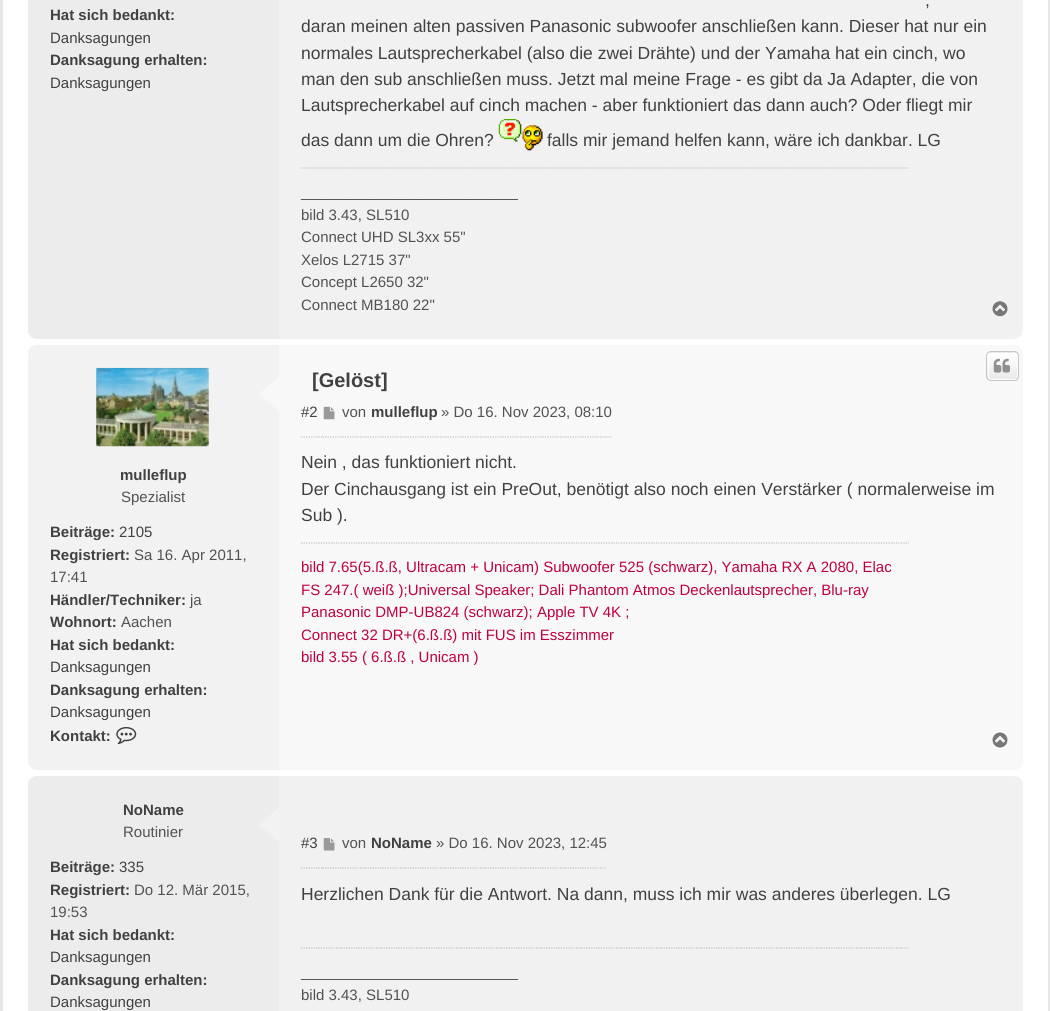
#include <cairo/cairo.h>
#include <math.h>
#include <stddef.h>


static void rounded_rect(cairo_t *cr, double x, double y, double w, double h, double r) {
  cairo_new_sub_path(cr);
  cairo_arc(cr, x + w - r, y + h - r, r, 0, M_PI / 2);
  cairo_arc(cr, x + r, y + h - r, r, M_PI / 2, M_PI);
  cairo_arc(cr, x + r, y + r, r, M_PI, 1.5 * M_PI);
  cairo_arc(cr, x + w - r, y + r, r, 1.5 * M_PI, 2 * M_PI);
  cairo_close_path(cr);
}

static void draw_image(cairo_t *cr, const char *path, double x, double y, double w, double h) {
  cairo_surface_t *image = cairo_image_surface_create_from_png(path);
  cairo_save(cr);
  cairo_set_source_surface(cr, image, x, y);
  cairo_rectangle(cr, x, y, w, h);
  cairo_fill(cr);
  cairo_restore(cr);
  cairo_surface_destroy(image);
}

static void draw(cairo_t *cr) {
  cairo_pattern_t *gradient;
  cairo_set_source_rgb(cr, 1, 1, 1);
  cairo_paint(cr);
  cairo_set_source_rgb(cr, 231 / 255.0, 231 / 255.0, 231 / 255.0);
  cairo_rectangle(cr, 1048, 0, 2, 1011);
  cairo_fill(cr);
  cairo_rectangle(cr, 0, 0, 3, 1011);
  cairo_fill(cr);
  cairo_set_source_rgb(cr, 241 / 255.0, 241 / 255.0, 241 / 255.0);
  rounded_rect(cr, 28, -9, 995, 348, 9);
  cairo_fill(cr);
  cairo_set_source_rgb(cr, 236 / 255.0, 236 / 255.0, 236 / 255.0);
  cairo_new_path(cr);
  cairo_move_to(cr, 37, -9);
  cairo_line_to(cr, 279, -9);
  cairo_line_to(cr, 279, 339);
  cairo_line_to(cr, 37, 339);
  cairo_curve_to(cr, 32, 339, 28, 335, 28, 330);
  cairo_line_to(cr, 28, 0);
  cairo_curve_to(cr, 28, -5, 32, -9, 37, -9);
  cairo_close_path(cr);
  cairo_fill(cr);
  draw_image(cr, "images/1.png", 498, 119, 45, 32);
  cairo_new_path(cr);
  cairo_move_to(cr, 301, 168);
  cairo_line_to(cr, 909, 168);
  cairo_set_source_rgb(cr, 194 / 255.0, 194 / 255.0, 194 / 255.0);
  cairo_set_line_width(cr, 1.2);
  cairo_set_dash(cr, (double[]){1.25, 1.25}, 2, 0);
  cairo_stroke(cr);
  draw_image(cr, "images/2.png", 992, 301, 16, 16);
  cairo_set_source_rgb(cr, 248 / 255.0, 248 / 255.0, 248 / 255.0);
  rounded_rect(cr, 28, 345, 995, 425, 9);
  cairo_fill(cr);
  cairo_set_source_rgb(cr, 242 / 255.0, 242 / 255.0, 242 / 255.0);
  cairo_new_path(cr);
  cairo_move_to(cr, 37, 345);
  cairo_line_to(cr, 279, 345);
  cairo_line_to(cr, 279, 770);
  cairo_line_to(cr, 37, 770);
  cairo_curve_to(cr, 32, 770, 28, 766, 28, 761);
  cairo_line_to(cr, 28, 354);
  cairo_curve_to(cr, 28, 349, 32, 345, 37, 345);
  cairo_close_path(cr);
  cairo_fill(cr);
  draw_image(cr, "images/3.png", 96, 367, 113, 80);
  draw_image(cr, "images/4.png", 116, 727, 21, 18);
  cairo_set_source_rgb(cr, 248 / 255.0, 248 / 255.0, 248 / 255.0);
  cairo_new_path(cr);
  cairo_move_to(cr, 279, 376);
  cairo_line_to(cr, 279, 411);
  cairo_line_to(cr, 259, 394);
  cairo_close_path(cr);
  cairo_fill(cr);
  cairo_save(cr);
  rounded_rect(cr, 986, 351, 33, 30, 5);
  cairo_clip(cr);
  gradient = cairo_pattern_create_linear(1003, 325, 1003, 353);
  cairo_pattern_add_color_stop_rgba(gradient, 0, 1, 1, 1, 1);
  cairo_pattern_add_color_stop_rgba(gradient, 1, 233 / 255.0, 233 / 255.0, 233 / 255.0, 1);
  cairo_set_source(cr, gradient);
  cairo_pattern_destroy(gradient);
  cairo_rectangle(cr, 986, 351, 33, 2);
  cairo_fill(cr);
  gradient = cairo_pattern_create_linear(1003, 353, 1003, 380);
  cairo_pattern_add_color_stop_rgba(gradient, 0, 1, 1, 1, 1);
  cairo_pattern_add_color_stop_rgba(gradient, 1, 233 / 255.0, 233 / 255.0, 233 / 255.0, 1);
  cairo_set_source(cr, gradient);
  cairo_pattern_destroy(gradient);
  cairo_rectangle(cr, 986, 353, 33, 27);
  cairo_fill(cr);
  cairo_restore(cr);
  rounded_rect(cr, 988.5, 353.5, 29, 26, 3.5);
  cairo_set_source_rgb(cr, 1, 1, 1);
  cairo_set_line_width(cr, 1);
  cairo_set_dash(cr, NULL, 0, 0);
  cairo_stroke(cr);
  rounded_rect(cr, 986.5, 351.5, 32, 29, 4.5);
  cairo_set_source_rgb(cr, 199 / 255.0, 195 / 255.0, 191 / 255.0);
  cairo_stroke(cr);
  draw_image(cr, "images/5.png", 993, 358, 17, 15);
  cairo_new_path(cr);
  cairo_move_to(cr, 301, 437);
  cairo_line_to(cr, 322.5, 437);
  cairo_set_source_rgb(cr, 194 / 255.0, 194 / 255.0, 194 / 255.0);
  cairo_set_line_width(cr, 1.2);
  cairo_set_dash(cr, (double[]){1.25, 1.25}, 2, 0);
  cairo_stroke(cr);
  cairo_new_path(cr);
  cairo_move_to(cr, 322.5, 437);
  cairo_line_to(cr, 612.5, 437);
  cairo_stroke(cr);
  draw_image(cr, "images/6.png", 323, 406, 12, 14);
  cairo_new_path(cr);
  cairo_move_to(cr, 301, 543);
  cairo_line_to(cr, 909, 543);
  cairo_stroke(cr);
  draw_image(cr, "images/7.png", 992, 732, 16, 16);
  cairo_set_source_rgb(cr, 241 / 255.0, 241 / 255.0, 241 / 255.0);
  rounded_rect(cr, 28, 776, 995, 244, 9);
  cairo_fill(cr);
  cairo_set_source_rgb(cr, 236 / 255.0, 236 / 255.0, 236 / 255.0);
  cairo_new_path(cr);
  cairo_move_to(cr, 37, 776);
  cairo_line_to(cr, 279, 776);
  cairo_line_to(cr, 279, 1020);
  cairo_line_to(cr, 37, 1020);
  cairo_curve_to(cr, 32, 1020, 28, 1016, 28, 1011);
  cairo_line_to(cr, 28, 785);
  cairo_curve_to(cr, 28, 780, 32, 776, 37, 776);
  cairo_close_path(cr);
  cairo_fill(cr);
  cairo_set_source_rgb(cr, 242 / 255.0, 242 / 255.0, 242 / 255.0);
  cairo_new_path(cr);
  cairo_move_to(cr, 279, 807.5);
  cairo_line_to(cr, 279, 842.5);
  cairo_line_to(cr, 259, 825);
  cairo_close_path(cr);
  cairo_fill(cr);
  cairo_new_path(cr);
  cairo_move_to(cr, 301, 868);
  cairo_line_to(cr, 322.5, 868);
  cairo_set_source_rgb(cr, 194 / 255.0, 194 / 255.0, 194 / 255.0);
  cairo_stroke(cr);
  cairo_new_path(cr);
  cairo_move_to(cr, 322.5, 868);
  cairo_line_to(cr, 606, 868);
  cairo_stroke(cr);
  draw_image(cr, "images/8.png", 323, 838, 12, 13);
  cairo_new_path(cr);
  cairo_move_to(cr, 301, 948);
  cairo_line_to(cr, 909, 948);
  cairo_stroke(cr);
  cairo_select_font_face(cr, "Liberation Sans", CAIRO_FONT_SLANT_NORMAL, CAIRO_FONT_WEIGHT_BOLD);
  cairo_set_font_size(cr, 15);
  cairo_set_source_rgb(cr, 65 / 255.0, 65 / 255.0, 65 / 255.0);
  cairo_move_to(cr, 50, 20);
  cairo_show_text(cr, "Hat sich bedankt:");
  cairo_select_font_face(cr, "Liberation Sans", CAIRO_FONT_SLANT_NORMAL, CAIRO_FONT_WEIGHT_NORMAL);
  cairo_move_to(cr, 50, 43);
  cairo_show_text(cr, "Danksagungen");
  cairo_select_font_face(cr, "Liberation Sans", CAIRO_FONT_SLANT_NORMAL, CAIRO_FONT_WEIGHT_BOLD);
  cairo_move_to(cr, 50, 65);
  cairo_show_text(cr, "Danksagung erhalten:");
  cairo_select_font_face(cr, "Liberation Sans", CAIRO_FONT_SLANT_NORMAL, CAIRO_FONT_WEIGHT_NORMAL);
  cairo_move_to(cr, 50, 88);
  cairo_show_text(cr, "Danksagungen");
  cairo_set_font_size(cr, 17.5);
  cairo_move_to(cr, 925, 6);
  cairo_show_text(cr, ",");
  cairo_move_to(cr, 301, 32);
  cairo_show_text(cr, "daran meinen alten passiven Panasonic subwoofer anschließen kann. Dieser hat nur ein");
  cairo_move_to(cr, 301, 59);
  cairo_show_text(cr, "normales Lautsprecherkabel (also die zwei Drähte) und der Yamaha hat ein cinch, wo");
  cairo_move_to(cr, 301, 85);
  cairo_show_text(cr, "man den sub anschließen muss. Jetzt mal meine Frage - es gibt da Ja Adapter, die von");
  cairo_move_to(cr, 301, 111);
  cairo_show_text(cr, "Lautsprecherkabel auf cinch machen - aber funktioniert das dann auch? Oder fliegt mir");
  cairo_move_to(cr, 301, 146);
  cairo_show_text(cr, "das dann um die Ohren?");
  cairo_move_to(cr, 547, 146);
  cairo_show_text(cr, "falls mir jemand helfen kann, wäre ich dankbar. LG");
  cairo_set_font_size(cr, 15);
  cairo_set_source_rgb(cr, 82 / 255.0, 82 / 255.0, 82 / 255.0);
  cairo_move_to(cr, 301, 197);
  cairo_show_text(cr, "__________________________");
  cairo_move_to(cr, 301, 220);
  cairo_show_text(cr, "bild 3.43, SL510");
  cairo_move_to(cr, 301, 242);
  cairo_show_text(cr, "Connect UHD SL3xx 55\"");
  cairo_move_to(cr, 301, 265);
  cairo_show_text(cr, "Xelos L2715 37\"");
  cairo_move_to(cr, 301, 287);
  cairo_show_text(cr, "Concept L2650 32\"");
  cairo_move_to(cr, 301, 310);
  cairo_show_text(cr, "Connect MB180 22\"");
  cairo_select_font_face(cr, "Liberation Sans", CAIRO_FONT_SLANT_NORMAL, CAIRO_FONT_WEIGHT_BOLD);
  cairo_set_source_rgb(cr, 65 / 255.0, 65 / 255.0, 65 / 255.0);
  cairo_move_to(cr, 120, 480);
  cairo_show_text(cr, "mulleflup");
  cairo_select_font_face(cr, "Liberation Sans", CAIRO_FONT_SLANT_NORMAL, CAIRO_FONT_WEIGHT_NORMAL);
  cairo_set_source_rgb(cr, 82 / 255.0, 82 / 255.0, 82 / 255.0);
  cairo_move_to(cr, 121, 502);
  cairo_show_text(cr, "Spezialist");
  cairo_select_font_face(cr, "Liberation Sans", CAIRO_FONT_SLANT_NORMAL, CAIRO_FONT_WEIGHT_BOLD);
  cairo_set_source_rgb(cr, 65 / 255.0, 65 / 255.0, 65 / 255.0);
  cairo_move_to(cr, 50, 537);
  cairo_show_text(cr, "Beiträge:");
  cairo_select_font_face(cr, "Liberation Sans", CAIRO_FONT_SLANT_NORMAL, CAIRO_FONT_WEIGHT_NORMAL);
  cairo_move_to(cr, 119, 537);
  cairo_show_text(cr, "2105");
  cairo_select_font_face(cr, "Liberation Sans", CAIRO_FONT_SLANT_NORMAL, CAIRO_FONT_WEIGHT_BOLD);
  cairo_move_to(cr, 50, 560);
  cairo_show_text(cr, "Registriert:");
  cairo_select_font_face(cr, "Liberation Sans", CAIRO_FONT_SLANT_NORMAL, CAIRO_FONT_WEIGHT_NORMAL);
  cairo_set_source_rgb(cr, 82 / 255.0, 82 / 255.0, 82 / 255.0);
  cairo_move_to(cr, 134, 560);
  cairo_show_text(cr, "Sa 16. Apr 2011,");
  cairo_move_to(cr, 50, 582);
  cairo_show_text(cr, "17:41");
  cairo_select_font_face(cr, "Liberation Sans", CAIRO_FONT_SLANT_NORMAL, CAIRO_FONT_WEIGHT_BOLD);
  cairo_set_source_rgb(cr, 65 / 255.0, 65 / 255.0, 65 / 255.0);
  cairo_move_to(cr, 50, 605);
  cairo_show_text(cr, "Händler/Techniker:");
  cairo_select_font_face(cr, "Liberation Sans", CAIRO_FONT_SLANT_NORMAL, CAIRO_FONT_WEIGHT_NORMAL);
  cairo_set_source_rgb(cr, 82 / 255.0, 82 / 255.0, 82 / 255.0);
  cairo_move_to(cr, 190, 605);
  cairo_show_text(cr, "ja");
  cairo_select_font_face(cr, "Liberation Sans", CAIRO_FONT_SLANT_NORMAL, CAIRO_FONT_WEIGHT_BOLD);
  cairo_set_source_rgb(cr, 65 / 255.0, 65 / 255.0, 65 / 255.0);
  cairo_move_to(cr, 50, 627);
  cairo_show_text(cr, "Wohnort:");
  cairo_select_font_face(cr, "Liberation Sans", CAIRO_FONT_SLANT_NORMAL, CAIRO_FONT_WEIGHT_NORMAL);
  cairo_set_source_rgb(cr, 82 / 255.0, 82 / 255.0, 82 / 255.0);
  cairo_move_to(cr, 121, 627);
  cairo_show_text(cr, "Aachen");
  cairo_select_font_face(cr, "Liberation Sans", CAIRO_FONT_SLANT_NORMAL, CAIRO_FONT_WEIGHT_BOLD);
  cairo_set_source_rgb(cr, 65 / 255.0, 65 / 255.0, 65 / 255.0);
  cairo_move_to(cr, 50, 650);
  cairo_show_text(cr, "Hat sich bedankt:");
  cairo_select_font_face(cr, "Liberation Sans", CAIRO_FONT_SLANT_NORMAL, CAIRO_FONT_WEIGHT_NORMAL);
  cairo_move_to(cr, 50, 672);
  cairo_show_text(cr, "Danksagungen");
  cairo_select_font_face(cr, "Liberation Sans", CAIRO_FONT_SLANT_NORMAL, CAIRO_FONT_WEIGHT_BOLD);
  cairo_move_to(cr, 50, 695);
  cairo_show_text(cr, "Danksagung erhalten:");
  cairo_select_font_face(cr, "Liberation Sans", CAIRO_FONT_SLANT_NORMAL, CAIRO_FONT_WEIGHT_NORMAL);
  cairo_move_to(cr, 50, 717);
  cairo_show_text(cr, "Danksagungen");
  cairo_select_font_face(cr, "Liberation Sans", CAIRO_FONT_SLANT_NORMAL, CAIRO_FONT_WEIGHT_BOLD);
  cairo_move_to(cr, 50, 741);
  cairo_show_text(cr, "Kontakt:");
  cairo_set_font_size(cr, 20);
  cairo_move_to(cr, 312, 387);
  cairo_show_text(cr, "[Gelöst]");
  cairo_select_font_face(cr, "Liberation Sans", CAIRO_FONT_SLANT_NORMAL, CAIRO_FONT_WEIGHT_NORMAL);
  cairo_set_font_size(cr, 15);
  cairo_move_to(cr, 301, 417);
  cairo_show_text(cr, "#2");
  cairo_set_source_rgb(cr, 82 / 255.0, 82 / 255.0, 82 / 255.0);
  cairo_move_to(cr, 342, 417);
  cairo_show_text(cr, "von");
  cairo_select_font_face(cr, "Liberation Sans", CAIRO_FONT_SLANT_NORMAL, CAIRO_FONT_WEIGHT_BOLD);
  cairo_set_source_rgb(cr, 65 / 255.0, 65 / 255.0, 65 / 255.0);
  cairo_move_to(cr, 371, 417);
  cairo_show_text(cr, "mulleflup");
  cairo_select_font_face(cr, "Liberation Sans", CAIRO_FONT_SLANT_NORMAL, CAIRO_FONT_WEIGHT_NORMAL);
  cairo_set_source_rgb(cr, 82 / 255.0, 82 / 255.0, 82 / 255.0);
  cairo_move_to(cr, 441, 417);
  cairo_show_text(cr, "» Do 16. Nov 2023, 08:10");
  cairo_set_font_size(cr, 17.5);
  cairo_set_source_rgb(cr, 65 / 255.0, 65 / 255.0, 65 / 255.0);
  cairo_move_to(cr, 301, 468);
  cairo_show_text(cr, "Nein , das funktioniert nicht.");
  cairo_move_to(cr, 301, 495);
  cairo_show_text(cr, "Der Cinchausgang ist ein PreOut, benötigt also noch einen Verstärker ( normalerweise im");
  cairo_move_to(cr, 301, 521);
  cairo_show_text(cr, "Sub ).");
  cairo_set_font_size(cr, 15);
  cairo_set_source_rgb(cr, 191 / 255.0, 0, 64 / 255.0);
  cairo_move_to(cr, 301, 572);
  cairo_show_text(cr, "bild 7.65(5.ß.ß, Ultracam + Unicam) Subwoofer 525 (schwarz), Yamaha RX A 2080, Elac");
  cairo_move_to(cr, 301, 595);
  cairo_show_text(cr, "FS 247.( weiß );Universal Speaker; Dali Phantom Atmos Deckenlautsprecher, Blu-ray");
  cairo_move_to(cr, 301, 617);
  cairo_show_text(cr, "Panasonic DMP-UB824 (schwarz); Apple TV 4K ;");
  cairo_move_to(cr, 301, 640);
  cairo_show_text(cr, "Connect 32 DR+(6.ß.ß) mit FUS im Esszimmer");
  cairo_move_to(cr, 301, 662);
  cairo_show_text(cr, "bild 3.55 ( 6.ß.ß , Unicam )");
  cairo_select_font_face(cr, "Liberation Sans", CAIRO_FONT_SLANT_NORMAL, CAIRO_FONT_WEIGHT_BOLD);
  cairo_set_source_rgb(cr, 65 / 255.0, 65 / 255.0, 65 / 255.0);
  cairo_move_to(cr, 123, 815);
  cairo_show_text(cr, "NoName");
  cairo_select_font_face(cr, "Liberation Sans", CAIRO_FONT_SLANT_NORMAL, CAIRO_FONT_WEIGHT_NORMAL);
  cairo_set_source_rgb(cr, 82 / 255.0, 82 / 255.0, 82 / 255.0);
  cairo_move_to(cr, 123, 837);
  cairo_show_text(cr, "Routinier");
  cairo_select_font_face(cr, "Liberation Sans", CAIRO_FONT_SLANT_NORMAL, CAIRO_FONT_WEIGHT_BOLD);
  cairo_set_source_rgb(cr, 65 / 255.0, 65 / 255.0, 65 / 255.0);
  cairo_move_to(cr, 50, 872);
  cairo_show_text(cr, "Beiträge:");
  cairo_select_font_face(cr, "Liberation Sans", CAIRO_FONT_SLANT_NORMAL, CAIRO_FONT_WEIGHT_NORMAL);
  cairo_move_to(cr, 119, 872);
  cairo_show_text(cr, "335");
  cairo_select_font_face(cr, "Liberation Sans", CAIRO_FONT_SLANT_NORMAL, CAIRO_FONT_WEIGHT_BOLD);
  cairo_move_to(cr, 50, 895);
  cairo_show_text(cr, "Registriert:");
  cairo_select_font_face(cr, "Liberation Sans", CAIRO_FONT_SLANT_NORMAL, CAIRO_FONT_WEIGHT_NORMAL);
  cairo_set_source_rgb(cr, 82 / 255.0, 82 / 255.0, 82 / 255.0);
  cairo_move_to(cr, 134, 895);
  cairo_show_text(cr, "Do 12. Mär 2015,");
  cairo_move_to(cr, 50, 917);
  cairo_show_text(cr, "19:53");
  cairo_select_font_face(cr, "Liberation Sans", CAIRO_FONT_SLANT_NORMAL, CAIRO_FONT_WEIGHT_BOLD);
  cairo_set_source_rgb(cr, 65 / 255.0, 65 / 255.0, 65 / 255.0);
  cairo_move_to(cr, 50, 940);
  cairo_show_text(cr, "Hat sich bedankt:");
  cairo_select_font_face(cr, "Liberation Sans", CAIRO_FONT_SLANT_NORMAL, CAIRO_FONT_WEIGHT_NORMAL);
  cairo_move_to(cr, 50, 962);
  cairo_show_text(cr, "Danksagungen");
  cairo_select_font_face(cr, "Liberation Sans", CAIRO_FONT_SLANT_NORMAL, CAIRO_FONT_WEIGHT_BOLD);
  cairo_move_to(cr, 50, 985);
  cairo_show_text(cr, "Danksagung erhalten:");
  cairo_select_font_face(cr, "Liberation Sans", CAIRO_FONT_SLANT_NORMAL, CAIRO_FONT_WEIGHT_NORMAL);
  cairo_move_to(cr, 50, 1007);
  cairo_show_text(cr, "Danksagungen");
  cairo_move_to(cr, 301, 848);
  cairo_show_text(cr, "#3");
  cairo_set_source_rgb(cr, 82 / 255.0, 82 / 255.0, 82 / 255.0);
  cairo_move_to(cr, 342, 848);
  cairo_show_text(cr, "von");
  cairo_select_font_face(cr, "Liberation Sans", CAIRO_FONT_SLANT_NORMAL, CAIRO_FONT_WEIGHT_BOLD);
  cairo_set_source_rgb(cr, 65 / 255.0, 65 / 255.0, 65 / 255.0);
  cairo_move_to(cr, 371, 848);
  cairo_show_text(cr, "NoName");
  cairo_select_font_face(cr, "Liberation Sans", CAIRO_FONT_SLANT_NORMAL, CAIRO_FONT_WEIGHT_NORMAL);
  cairo_set_source_rgb(cr, 82 / 255.0, 82 / 255.0, 82 / 255.0);
  cairo_move_to(cr, 436, 848);
  cairo_show_text(cr, "» Do 16. Nov 2023, 12:45");
  cairo_set_font_size(cr, 17.5);
  cairo_set_source_rgb(cr, 65 / 255.0, 65 / 255.0, 65 / 255.0);
  cairo_move_to(cr, 301, 900);
  cairo_show_text(cr, "Herzlichen Dank für die Antwort. Na dann, muss ich mir was anderes überlegen. LG");
  cairo_set_font_size(cr, 15);
  cairo_set_source_rgb(cr, 82 / 255.0, 82 / 255.0, 82 / 255.0);
  cairo_move_to(cr, 301, 977);
  cairo_show_text(cr, "__________________________");
  cairo_move_to(cr, 301, 1000);
  cairo_show_text(cr, "bild 3.43, SL510");
}

int main(void) {
  cairo_surface_t *surface = cairo_image_surface_create(CAIRO_FORMAT_RGB24, 1050, 1011);
  cairo_t *cr = cairo_create(surface);
  cairo_font_options_t *options = cairo_font_options_create();
  cairo_font_options_set_hint_metrics(options, CAIRO_HINT_METRICS_OFF);
  cairo_font_options_set_hint_style(options, CAIRO_HINT_STYLE_NONE);
  cairo_set_font_options(cr, options);
  cairo_set_miter_limit(cr, 4);
  draw(cr);
  cairo_surface_write_to_png(surface, "out.png");
  cairo_font_options_destroy(options);
  cairo_destroy(cr);
  cairo_surface_destroy(surface);
  return 0;
}
